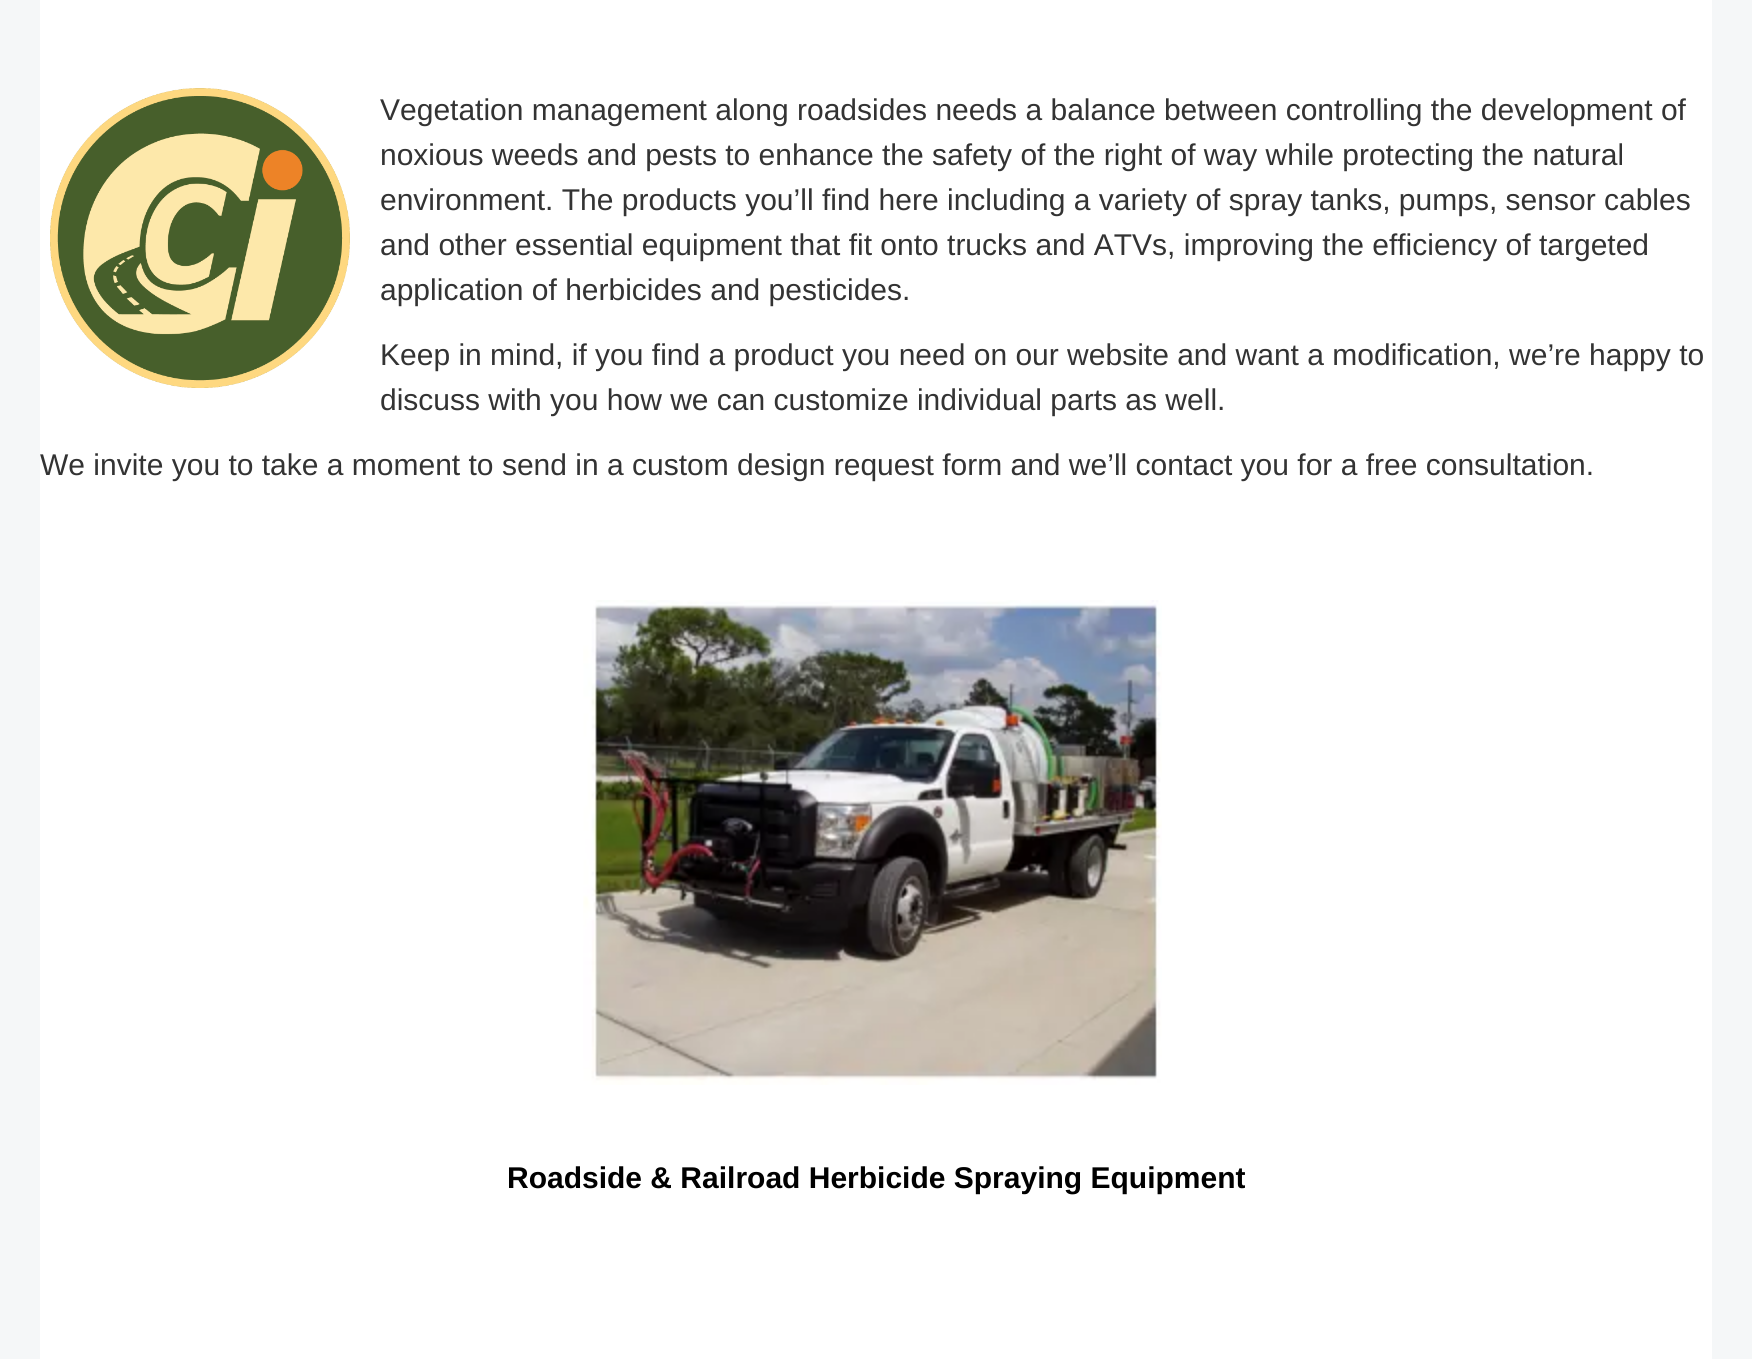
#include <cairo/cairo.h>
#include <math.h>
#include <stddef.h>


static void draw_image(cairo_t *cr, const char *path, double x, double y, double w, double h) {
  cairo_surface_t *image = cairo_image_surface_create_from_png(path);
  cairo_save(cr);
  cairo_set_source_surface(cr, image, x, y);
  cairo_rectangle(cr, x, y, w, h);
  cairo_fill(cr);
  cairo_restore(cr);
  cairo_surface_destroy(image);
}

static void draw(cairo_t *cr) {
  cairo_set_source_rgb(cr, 245 / 255.0, 247 / 255.0, 248 / 255.0);
  cairo_paint(cr);
  cairo_set_source_rgb(cr, 1, 1, 1);
  cairo_rectangle(cr, 40, 0, 1672, 1359);
  cairo_fill(cr);
  draw_image(cr, "images/1.png", 50, 88, 300, 300);
  draw_image(cr, "images/2.png", 583, 600, 579, 485);
  cairo_select_font_face(cr, "Liberation Sans", CAIRO_FONT_SLANT_NORMAL, CAIRO_FONT_WEIGHT_NORMAL);
  cairo_set_font_size(cr, 30);
  cairo_set_source_rgb(cr, 51 / 255.0, 51 / 255.0, 51 / 255.0);
  cairo_move_to(cr, 380, 120);
  cairo_show_text(cr, "Vegetation management along roadsides needs a balance between controlling the development of");
  cairo_move_to(cr, 380, 165);
  cairo_show_text(cr, "noxious weeds and pests to enhance the safety of the right of way while protecting the natural");
  cairo_move_to(cr, 380, 210);
  cairo_show_text(cr, "environment. The products you’ll find here including a variety of spray tanks, pumps, sensor cables");
  cairo_move_to(cr, 380, 255);
  cairo_show_text(cr, "and other essential equipment that fit onto trucks and ATVs, improving the efficiency of targeted");
  cairo_move_to(cr, 380, 300);
  cairo_show_text(cr, "application of herbicides and pesticides.");
  cairo_move_to(cr, 380, 365);
  cairo_show_text(cr, "Keep in mind, if you find a product you need on our website and want a modification, we’re happy to");
  cairo_move_to(cr, 380, 410);
  cairo_show_text(cr, "discuss with you how we can customize individual parts as well.");
  cairo_move_to(cr, 40, 475);
  cairo_show_text(cr, "We invite you to take a moment to send in a custom design request form and we’ll contact you for a free consultation.");
  cairo_select_font_face(cr, "Liberation Sans", CAIRO_FONT_SLANT_NORMAL, CAIRO_FONT_WEIGHT_BOLD);
  cairo_set_source_rgb(cr, 0, 0, 0);
  cairo_move_to(cr, 507, 1188);
  cairo_show_text(cr, "Roadside & Railroad Herbicide Spraying Equipment");
}

int main(void) {
  cairo_surface_t *surface = cairo_image_surface_create(CAIRO_FORMAT_RGB24, 1752, 1359);
  cairo_t *cr = cairo_create(surface);
  cairo_font_options_t *options = cairo_font_options_create();
  cairo_font_options_set_hint_metrics(options, CAIRO_HINT_METRICS_OFF);
  cairo_font_options_set_hint_style(options, CAIRO_HINT_STYLE_NONE);
  cairo_set_font_options(cr, options);
  cairo_set_miter_limit(cr, 4);
  draw(cr);
  cairo_surface_write_to_png(surface, "out.png");
  cairo_font_options_destroy(options);
  cairo_destroy(cr);
  cairo_surface_destroy(surface);
  return 0;
}
